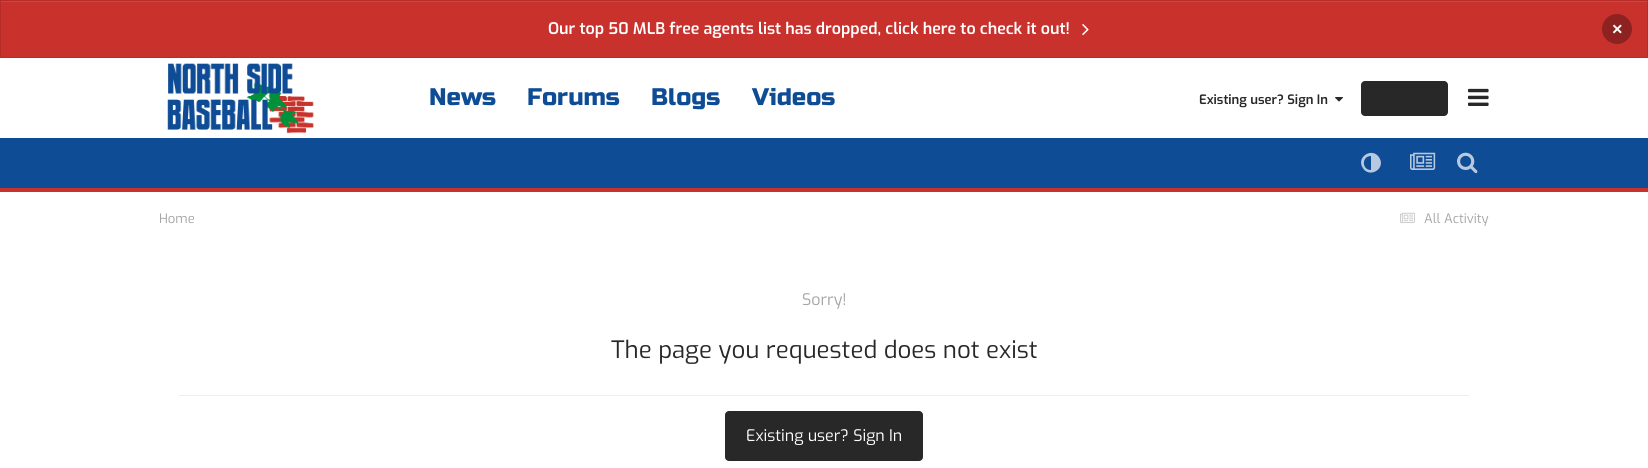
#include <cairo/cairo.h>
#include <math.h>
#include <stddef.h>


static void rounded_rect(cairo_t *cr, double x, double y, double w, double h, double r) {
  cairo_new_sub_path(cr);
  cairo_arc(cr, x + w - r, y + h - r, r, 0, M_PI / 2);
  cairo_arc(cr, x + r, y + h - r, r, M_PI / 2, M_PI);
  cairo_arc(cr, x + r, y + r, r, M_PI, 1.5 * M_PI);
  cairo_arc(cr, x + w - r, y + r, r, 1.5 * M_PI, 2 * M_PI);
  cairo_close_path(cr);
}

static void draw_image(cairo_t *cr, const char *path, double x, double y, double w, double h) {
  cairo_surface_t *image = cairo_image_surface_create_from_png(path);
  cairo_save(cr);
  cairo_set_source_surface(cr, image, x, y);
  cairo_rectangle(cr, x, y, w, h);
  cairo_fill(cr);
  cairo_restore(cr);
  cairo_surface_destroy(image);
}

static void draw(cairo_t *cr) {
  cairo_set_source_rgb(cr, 1, 1, 1);
  cairo_paint(cr);
  cairo_set_source_rgb(cr, 201 / 255.0, 49 / 255.0, 45 / 255.0);
  cairo_rectangle(cr, 1, 2, 1646, 55);
  cairo_fill(cr);
  cairo_set_source_rgb(cr, 206 / 255.0, 70 / 255.0, 66 / 255.0);
  cairo_rectangle(cr, 1, 1, 1646, 1);
  cairo_fill(cr);
  cairo_rectangle(cr, 0.5, 0.5, 1647, 57);
  cairo_set_source_rgb(cr, 181 / 255.0, 44 / 255.0, 41 / 255.0);
  cairo_set_line_width(cr, 1);
  cairo_stroke(cr);
  draw_image(cr, "images/1.png", 1082, 24, 7, 12);
  cairo_set_source_rgb(cr, 141 / 255.0, 34 / 255.0, 32 / 255.0);
  cairo_arc(cr, 1617, 29, 15, 0, 2 * M_PI);
  cairo_fill(cr);
  draw_image(cr, "images/2.png", 167, 63, 147, 71);
  draw_image(cr, "images/3.png", 1335, 97, 8, 5);
  cairo_set_source_rgb(cr, 40 / 255.0, 40 / 255.0, 40 / 255.0);
  rounded_rect(cr, 1361, 81, 87, 35, 4);
  cairo_fill(cr);
  draw_image(cr, "images/4.png", 1468, 88, 21, 18);
  cairo_set_source_rgb(cr, 15 / 255.0, 76 / 255.0, 150 / 255.0);
  cairo_rectangle(cr, 0, 138, 1648, 50);
  cairo_fill(cr);
  cairo_set_source_rgb(cr, 201 / 255.0, 49 / 255.0, 45 / 255.0);
  cairo_rectangle(cr, 0, 188, 1648, 4);
  cairo_fill(cr);
  cairo_set_source_rgb(cr, 183 / 255.0, 201 / 255.0, 224 / 255.0);
  cairo_new_path(cr);
  cairo_move_to(cr, 1371, 170);
  cairo_line_to(cr, 1371, 156);
  cairo_curve_to(cr, 1361.5, 156, 1361.5, 170, 1371, 170);
  cairo_close_path(cr);
  cairo_move_to(cr, 1379.5, 158);
  cairo_curve_to(cr, 1386, 169, 1369, 179, 1362.5, 167.5);
  cairo_curve_to(cr, 1356, 156.5, 1373, 146.5, 1379.5, 158);
  cairo_close_path(cr);
  cairo_fill(cr);
  draw_image(cr, "images/5.png", 1410, 152, 26, 18);
  draw_image(cr, "images/6.png", 1457, 152, 21, 22);
  draw_image(cr, "images/7.png", 1400, 212, 15, 11);
  cairo_set_source_rgb(cr, 238 / 255.0, 238 / 255.0, 238 / 255.0);
  cairo_rectangle(cr, 179, 395, 1290, 1);
  cairo_fill(cr);
  cairo_set_source_rgb(cr, 40 / 255.0, 40 / 255.0, 40 / 255.0);
  rounded_rect(cr, 725, 411, 198, 50, 4);
  cairo_fill(cr);
  cairo_select_font_face(cr, "Exo SemiBold", CAIRO_FONT_SLANT_NORMAL, CAIRO_FONT_WEIGHT_NORMAL);
  cairo_set_font_size(cr, 16);
  cairo_set_source_rgb(cr, 1, 1, 1);
  cairo_move_to(cr, 548, 34);
  cairo_show_text(cr, "Our top 50 MLB free agents list has dropped, click here to check it out!");
  cairo_select_font_face(cr, "Liberation Sans", CAIRO_FONT_SLANT_NORMAL, CAIRO_FONT_WEIGHT_BOLD);
  cairo_set_font_size(cr, 18);
  cairo_move_to(cr, 1612, 35);
  cairo_show_text(cr, "×");
  cairo_select_font_face(cr, "Russo One", CAIRO_FONT_SLANT_NORMAL, CAIRO_FONT_WEIGHT_NORMAL);
  cairo_set_font_size(cr, 24);
  cairo_set_source_rgb(cr, 15 / 255.0, 76 / 255.0, 150 / 255.0);
  cairo_move_to(cr, 429, 105);
  cairo_show_text(cr, "News");
  cairo_move_to(cr, 527, 105);
  cairo_show_text(cr, "Forums");
  cairo_move_to(cr, 651, 105);
  cairo_show_text(cr, "Blogs");
  cairo_move_to(cr, 752, 105);
  cairo_show_text(cr, "Videos");
  cairo_select_font_face(cr, "Exo SemiBold", CAIRO_FONT_SLANT_NORMAL, CAIRO_FONT_WEIGHT_NORMAL);
  cairo_set_font_size(cr, 13);
  cairo_set_source_rgb(cr, 40 / 255.0, 40 / 255.0, 40 / 255.0);
  cairo_move_to(cr, 1199, 104);
  cairo_show_text(cr, "Existing user? Sign In");
  cairo_select_font_face(cr, "Exo", CAIRO_FONT_SLANT_NORMAL, CAIRO_FONT_WEIGHT_NORMAL);
  cairo_set_source_rgb(cr, 165 / 255.0, 165 / 255.0, 165 / 255.0);
  cairo_move_to(cr, 159, 223);
  cairo_show_text(cr, "Home");
  cairo_move_to(cr, 1424, 223);
  cairo_show_text(cr, "All Activity");
  cairo_set_font_size(cr, 16);
  cairo_move_to(cr, 802, 305);
  cairo_show_text(cr, "Sorry!");
  cairo_set_font_size(cr, 24);
  cairo_set_source_rgb(cr, 40 / 255.0, 40 / 255.0, 40 / 255.0);
  cairo_move_to(cr, 611, 358);
  cairo_show_text(cr, "The page you requested does not exist");
  cairo_set_font_size(cr, 16);
  cairo_set_source_rgb(cr, 1, 1, 1);
  cairo_move_to(cr, 746, 441);
  cairo_show_text(cr, "Existing user? Sign In");
}

int main(void) {
  cairo_surface_t *surface = cairo_image_surface_create(CAIRO_FORMAT_RGB24, 1648, 468);
  cairo_t *cr = cairo_create(surface);
  cairo_font_options_t *options = cairo_font_options_create();
  cairo_font_options_set_hint_metrics(options, CAIRO_HINT_METRICS_OFF);
  cairo_font_options_set_hint_style(options, CAIRO_HINT_STYLE_NONE);
  cairo_set_font_options(cr, options);
  cairo_set_miter_limit(cr, 4);
  draw(cr);
  cairo_surface_write_to_png(surface, "out.png");
  cairo_font_options_destroy(options);
  cairo_destroy(cr);
  cairo_surface_destroy(surface);
  return 0;
}
